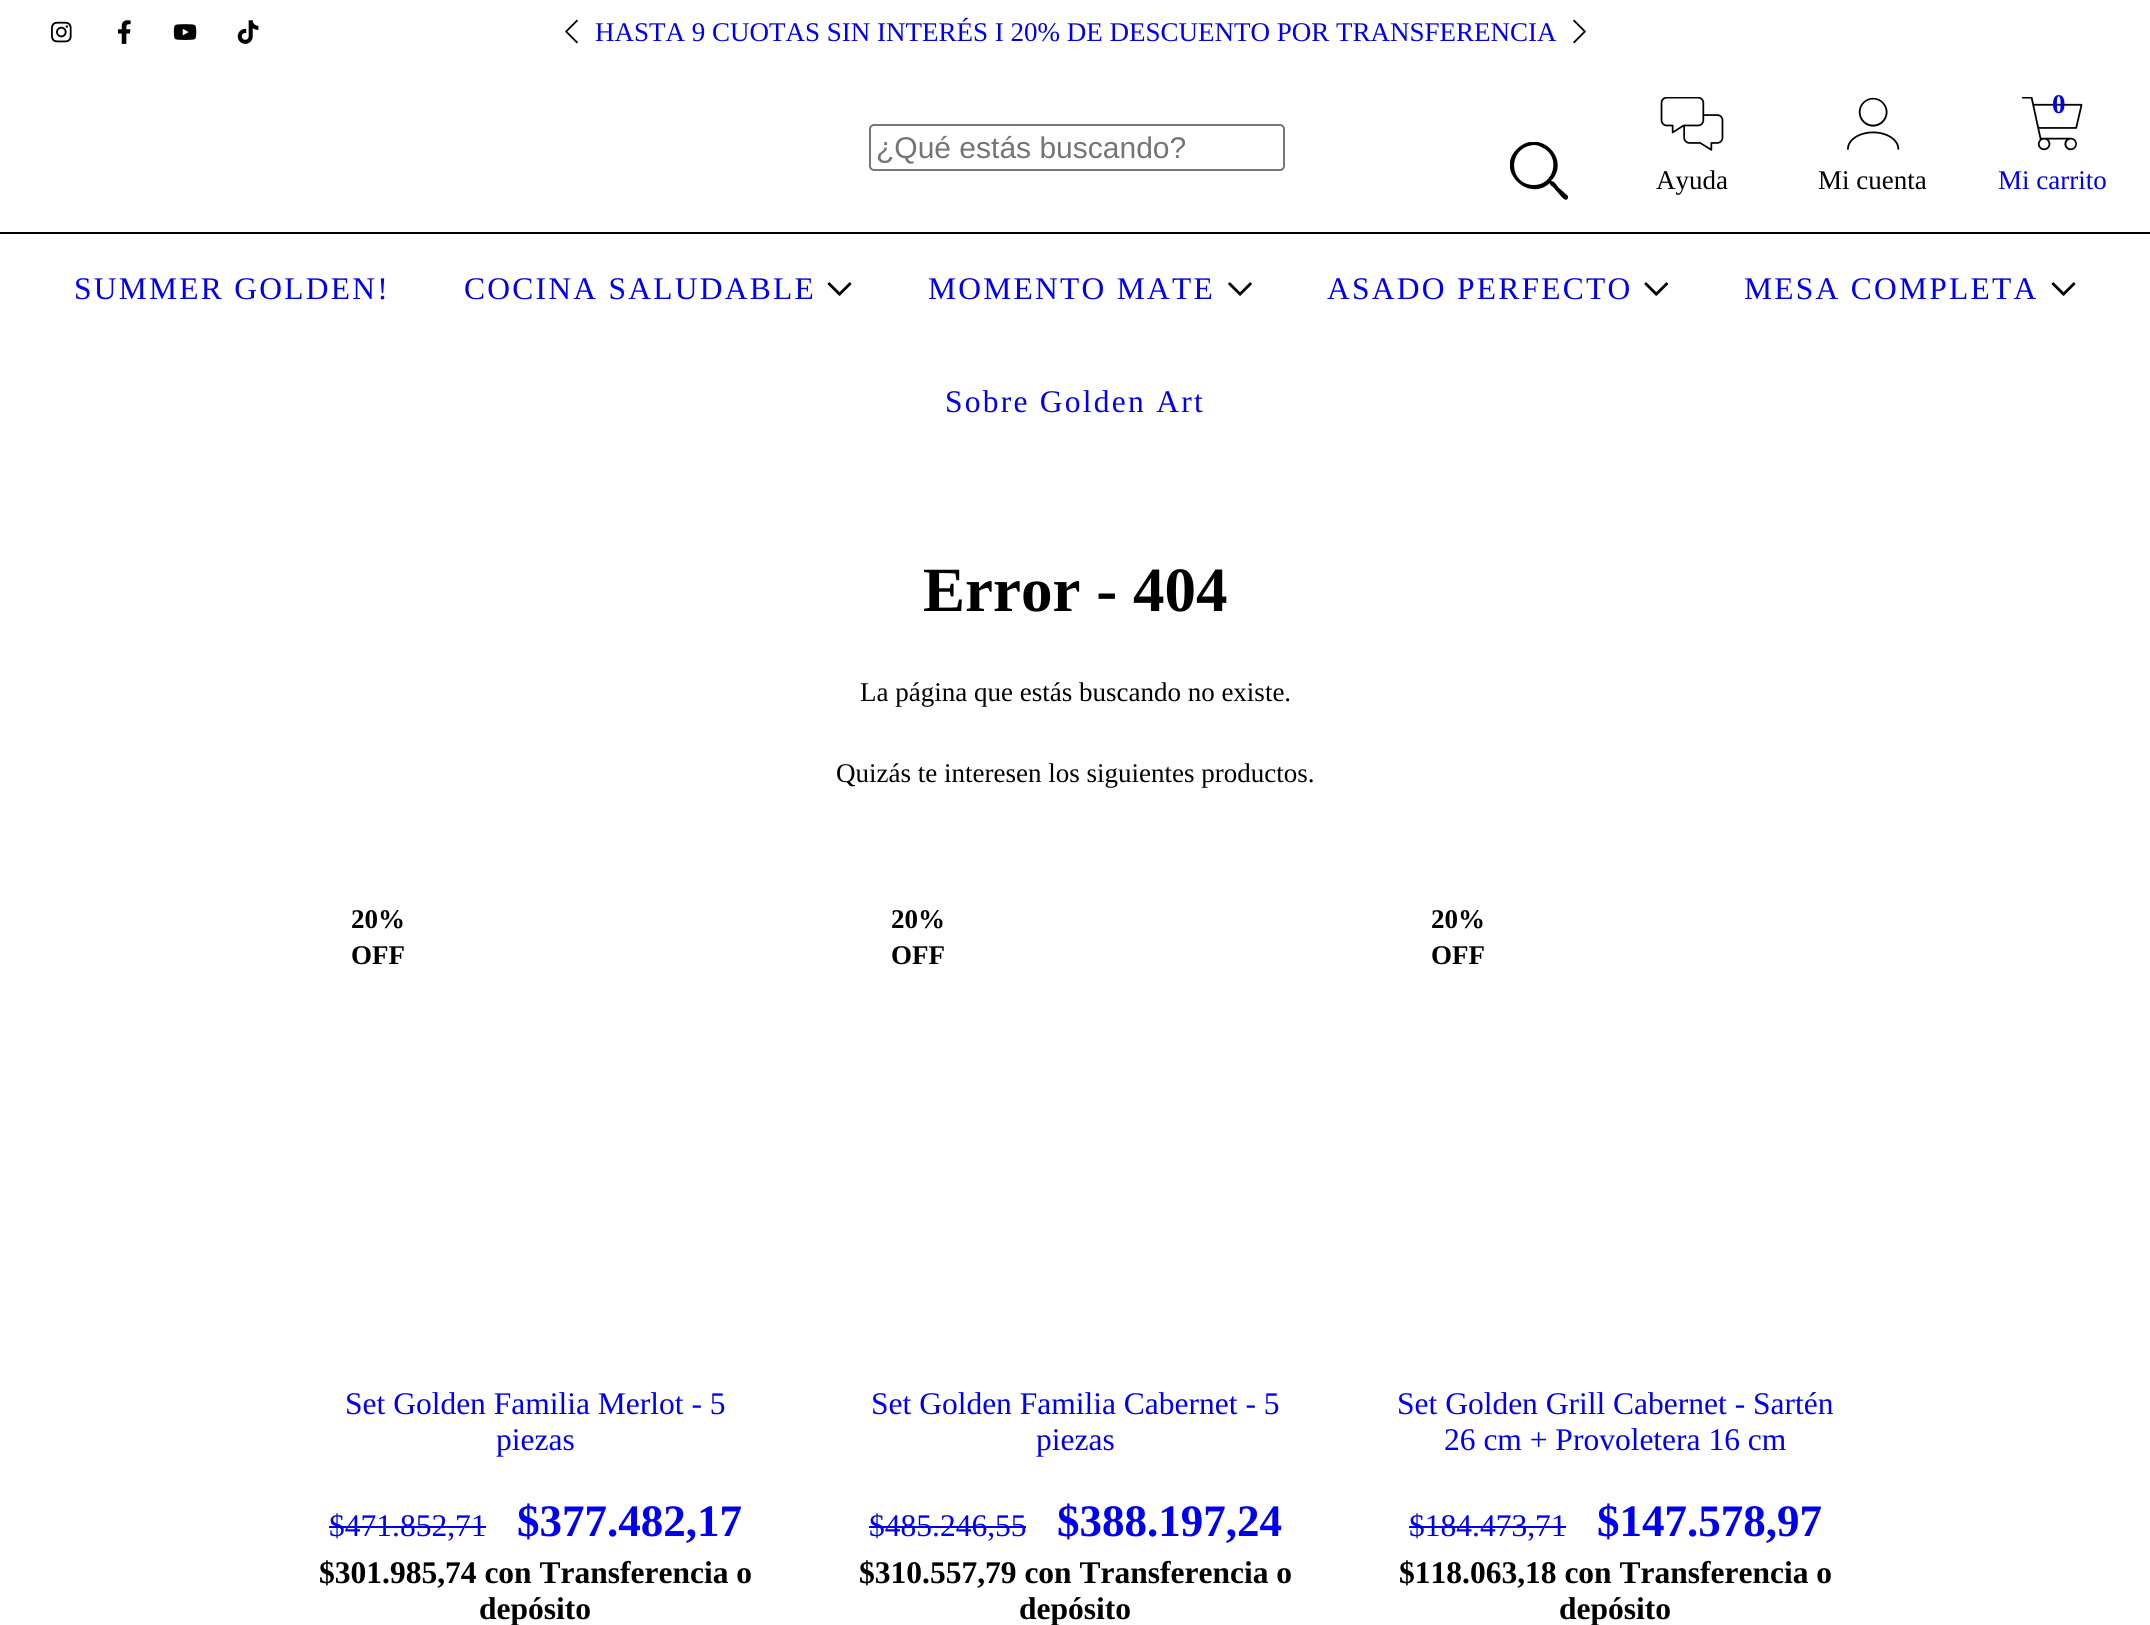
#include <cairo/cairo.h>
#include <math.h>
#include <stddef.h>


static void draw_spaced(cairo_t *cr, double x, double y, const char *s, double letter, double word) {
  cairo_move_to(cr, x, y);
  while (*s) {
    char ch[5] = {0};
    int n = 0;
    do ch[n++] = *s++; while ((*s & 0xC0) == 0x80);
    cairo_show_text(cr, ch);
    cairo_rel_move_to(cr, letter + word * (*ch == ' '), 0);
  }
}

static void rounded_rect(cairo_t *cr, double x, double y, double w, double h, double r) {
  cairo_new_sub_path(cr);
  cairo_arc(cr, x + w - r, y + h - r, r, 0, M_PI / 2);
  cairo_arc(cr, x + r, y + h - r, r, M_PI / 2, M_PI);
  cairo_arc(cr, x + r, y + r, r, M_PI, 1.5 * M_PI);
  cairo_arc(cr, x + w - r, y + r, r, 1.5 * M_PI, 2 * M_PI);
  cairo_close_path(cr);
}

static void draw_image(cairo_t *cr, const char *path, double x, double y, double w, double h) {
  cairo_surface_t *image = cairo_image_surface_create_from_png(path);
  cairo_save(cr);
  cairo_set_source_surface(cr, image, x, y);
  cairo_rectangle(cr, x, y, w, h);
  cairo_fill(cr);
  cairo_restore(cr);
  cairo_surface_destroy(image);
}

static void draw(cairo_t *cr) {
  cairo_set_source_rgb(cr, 1, 1, 1);
  cairo_paint(cr);
  draw_image(cr, "images/1.png", 51, 21, 21, 22);
  draw_image(cr, "images/2.png", 118, 20, 13, 24);
  draw_image(cr, "images/3.png", 173, 24, 24, 16);
  draw_image(cr, "images/4.png", 237, 20, 22, 24);
  draw_image(cr, "images/5.png", 565, 19, 13, 25);
  draw_image(cr, "images/6.png", 1573, 19, 13, 25);
  rounded_rect(cr, 870, 125, 414, 45, 4);
  cairo_set_source_rgb(cr, 118 / 255.0, 118 / 255.0, 118 / 255.0);
  cairo_stroke(cr);
  cairo_save(cr);
  cairo_rectangle(cr, 1510, 142, 60, 60);
  cairo_clip(cr);
  cairo_set_source_rgb(cr, 0, 0, 0);
  cairo_new_path(cr);
  cairo_move_to(cr, 1568, 196);
  cairo_line_to(cr, 1558, 187);
  cairo_curve_to(cr, 1556, 184, 1554, 181, 1551, 181);
  cairo_curve_to(cr, 1572, 159, 1539, 127, 1517, 149);
  cairo_curve_to(cr, 1495, 170, 1528, 203, 1550, 183);
  cairo_curve_to(cr, 1550, 185, 1550, 185, 1553, 187);
  cairo_line_to(cr, 1560, 195);
  cairo_curve_to(cr, 1561, 196, 1566, 203, 1568, 198);
  cairo_close_path(cr);
  cairo_move_to(cr, 1534, 185);
  cairo_curve_to(cr, 1508, 185, 1507, 147, 1534, 145);
  cairo_curve_to(cr, 1537, 145, 1540, 146, 1543, 148);
  cairo_curve_to(cr, 1561, 157, 1554, 185, 1534, 185);
  cairo_close_path(cr);
  cairo_fill(cr);
  cairo_restore(cr);
  draw_image(cr, "images/7.png", 1660, 97, 64, 54);
  draw_image(cr, "images/8.png", 1847, 97, 53, 53);
  draw_image(cr, "images/9.png", 2021, 97, 62, 54);
  cairo_set_source_rgb(cr, 0, 0, 0);
  cairo_rectangle(cr, 0, 232, 2150, 2);
  cairo_fill(cr);
  draw_image(cr, "images/10.png", 827, 282, 25, 14);
  draw_image(cr, "images/11.png", 1228, 282, 24, 14);
  draw_image(cr, "images/12.png", 1644, 282, 25, 14);
  draw_image(cr, "images/10.png", 2051, 282, 25, 14);
  cairo_set_source_rgb(cr, 0, 0, 238 / 255.0);
  cairo_rectangle(cr, 329, 1526, 157, 2);
  cairo_fill(cr);
  cairo_rectangle(cr, 869, 1526, 157, 2);
  cairo_fill(cr);
  cairo_rectangle(cr, 1409, 1526, 157, 2);
  cairo_fill(cr);
  cairo_select_font_face(cr, "Liberation Serif", CAIRO_FONT_SLANT_NORMAL, CAIRO_FONT_WEIGHT_NORMAL);
  cairo_set_font_size(cr, 27);
  cairo_move_to(cr, 595, 41);
  cairo_show_text(cr, "HASTA 9 CUOTAS SIN INTERÉS I 20% DE DESCUENTO POR TRANSFERENCIA");
  cairo_select_font_face(cr, "Liberation Sans", CAIRO_FONT_SLANT_NORMAL, CAIRO_FONT_WEIGHT_NORMAL);
  cairo_set_font_size(cr, 30);
  cairo_set_source_rgb(cr, 117 / 255.0, 117 / 255.0, 117 / 255.0);
  cairo_move_to(cr, 876, 158);
  cairo_show_text(cr, "¿Qué estás buscando?");
  cairo_select_font_face(cr, "Liberation Serif", CAIRO_FONT_SLANT_NORMAL, CAIRO_FONT_WEIGHT_NORMAL);
  cairo_set_font_size(cr, 27);
  cairo_set_source_rgb(cr, 0, 0, 0);
  cairo_move_to(cr, 1656, 189);
  cairo_show_text(cr, "Ayuda");
  cairo_move_to(cr, 1818, 189);
  cairo_show_text(cr, "Mi cuenta");
  cairo_select_font_face(cr, "Liberation Serif", CAIRO_FONT_SLANT_NORMAL, CAIRO_FONT_WEIGHT_BOLD);
  cairo_set_source_rgb(cr, 0, 0, 238 / 255.0);
  cairo_move_to(cr, 2052, 113);
  cairo_show_text(cr, "0");
  cairo_select_font_face(cr, "Liberation Serif", CAIRO_FONT_SLANT_NORMAL, CAIRO_FONT_WEIGHT_NORMAL);
  cairo_move_to(cr, 1998, 189);
  cairo_show_text(cr, "Mi carrito");
  cairo_set_font_size(cr, 31.5);
  draw_spaced(cr, 74, 299, "SUMMER GOLDEN!", 2.25, 0);
  draw_spaced(cr, 464, 299, "COCINA SALUDABLE", 2.25, 0);
  draw_spaced(cr, 928, 299, "MOMENTO MATE", 2.25, 0);
  draw_spaced(cr, 1327, 299, "ASADO PERFECTO", 2.25, 0);
  draw_spaced(cr, 1744, 299, "MESA COMPLETA", 2.25, 0);
  draw_spaced(cr, 945, 412, "Sobre Golden Art", 2.25, 0);
  cairo_select_font_face(cr, "Liberation Serif", CAIRO_FONT_SLANT_NORMAL, CAIRO_FONT_WEIGHT_BOLD);
  cairo_set_font_size(cr, 63);
  cairo_set_source_rgb(cr, 0, 0, 0);
  cairo_move_to(cr, 923, 611);
  cairo_show_text(cr, "Error - 404");
  cairo_select_font_face(cr, "Liberation Serif", CAIRO_FONT_SLANT_NORMAL, CAIRO_FONT_WEIGHT_NORMAL);
  cairo_set_font_size(cr, 27);
  cairo_move_to(cr, 860, 701);
  cairo_show_text(cr, "La página que estás buscando no existe.");
  cairo_move_to(cr, 836, 782);
  cairo_show_text(cr, "Quizás te interesen los siguientes productos.");
  cairo_select_font_face(cr, "Liberation Serif", CAIRO_FONT_SLANT_NORMAL, CAIRO_FONT_WEIGHT_BOLD);
  cairo_move_to(cr, 351, 928);
  cairo_show_text(cr, "20%");
  cairo_move_to(cr, 351, 964);
  cairo_show_text(cr, "OFF");
  cairo_select_font_face(cr, "Liberation Serif", CAIRO_FONT_SLANT_NORMAL, CAIRO_FONT_WEIGHT_NORMAL);
  cairo_set_font_size(cr, 31.5);
  cairo_set_source_rgb(cr, 0, 0, 238 / 255.0);
  cairo_move_to(cr, 345, 1414);
  cairo_show_text(cr, "Set Golden Familia Merlot - 5");
  cairo_move_to(cr, 496, 1450);
  cairo_show_text(cr, "piezas");
  cairo_move_to(cr, 329, 1536);
  cairo_show_text(cr, "$471.852,71");
  cairo_select_font_face(cr, "Liberation Serif", CAIRO_FONT_SLANT_NORMAL, CAIRO_FONT_WEIGHT_BOLD);
  cairo_set_font_size(cr, 45);
  cairo_move_to(cr, 517, 1536);
  cairo_show_text(cr, "$377.482,17");
  cairo_set_font_size(cr, 31.5);
  cairo_set_source_rgb(cr, 0, 0, 0);
  cairo_move_to(cr, 319, 1583);
  cairo_show_text(cr, "$301.985,74 con Transferencia o");
  cairo_move_to(cr, 479, 1619);
  cairo_show_text(cr, "depósito");
  cairo_set_font_size(cr, 27);
  cairo_move_to(cr, 891, 928);
  cairo_show_text(cr, "20%");
  cairo_move_to(cr, 891, 964);
  cairo_show_text(cr, "OFF");
  cairo_select_font_face(cr, "Liberation Serif", CAIRO_FONT_SLANT_NORMAL, CAIRO_FONT_WEIGHT_NORMAL);
  cairo_set_font_size(cr, 31.5);
  cairo_set_source_rgb(cr, 0, 0, 238 / 255.0);
  cairo_move_to(cr, 871, 1414);
  cairo_show_text(cr, "Set Golden Familia Cabernet - 5");
  cairo_move_to(cr, 1036, 1450);
  cairo_show_text(cr, "piezas");
  cairo_move_to(cr, 869, 1536);
  cairo_show_text(cr, "$485.246,55");
  cairo_select_font_face(cr, "Liberation Serif", CAIRO_FONT_SLANT_NORMAL, CAIRO_FONT_WEIGHT_BOLD);
  cairo_set_font_size(cr, 45);
  cairo_move_to(cr, 1057, 1536);
  cairo_show_text(cr, "$388.197,24");
  cairo_set_font_size(cr, 31.5);
  cairo_set_source_rgb(cr, 0, 0, 0);
  cairo_move_to(cr, 859, 1583);
  cairo_show_text(cr, "$310.557,79 con Transferencia o");
  cairo_move_to(cr, 1019, 1619);
  cairo_show_text(cr, "depósito");
  cairo_set_font_size(cr, 27);
  cairo_move_to(cr, 1431, 928);
  cairo_show_text(cr, "20%");
  cairo_move_to(cr, 1431, 964);
  cairo_show_text(cr, "OFF");
  cairo_select_font_face(cr, "Liberation Serif", CAIRO_FONT_SLANT_NORMAL, CAIRO_FONT_WEIGHT_NORMAL);
  cairo_set_font_size(cr, 31.5);
  cairo_set_source_rgb(cr, 0, 0, 238 / 255.0);
  cairo_move_to(cr, 1397, 1414);
  cairo_show_text(cr, "Set Golden Grill Cabernet - Sartén");
  cairo_move_to(cr, 1444, 1450);
  cairo_show_text(cr, "26 cm + Provoletera 16 cm");
  cairo_move_to(cr, 1409, 1536);
  cairo_show_text(cr, "$184.473,71");
  cairo_select_font_face(cr, "Liberation Serif", CAIRO_FONT_SLANT_NORMAL, CAIRO_FONT_WEIGHT_BOLD);
  cairo_set_font_size(cr, 45);
  cairo_move_to(cr, 1597, 1536);
  cairo_show_text(cr, "$147.578,97");
  cairo_set_font_size(cr, 31.5);
  cairo_set_source_rgb(cr, 0, 0, 0);
  cairo_move_to(cr, 1399, 1583);
  cairo_show_text(cr, "$118.063,18 con Transferencia o");
  cairo_move_to(cr, 1559, 1619);
  cairo_show_text(cr, "depósito");
}

int main(void) {
  cairo_surface_t *surface = cairo_image_surface_create(CAIRO_FORMAT_RGB24, 2150, 1625);
  cairo_t *cr = cairo_create(surface);
  cairo_font_options_t *options = cairo_font_options_create();
  cairo_font_options_set_hint_metrics(options, CAIRO_HINT_METRICS_OFF);
  cairo_font_options_set_hint_style(options, CAIRO_HINT_STYLE_NONE);
  cairo_set_font_options(cr, options);
  cairo_set_miter_limit(cr, 4);
  draw(cr);
  cairo_surface_write_to_png(surface, "out.png");
  cairo_font_options_destroy(options);
  cairo_destroy(cr);
  cairo_surface_destroy(surface);
  return 0;
}
